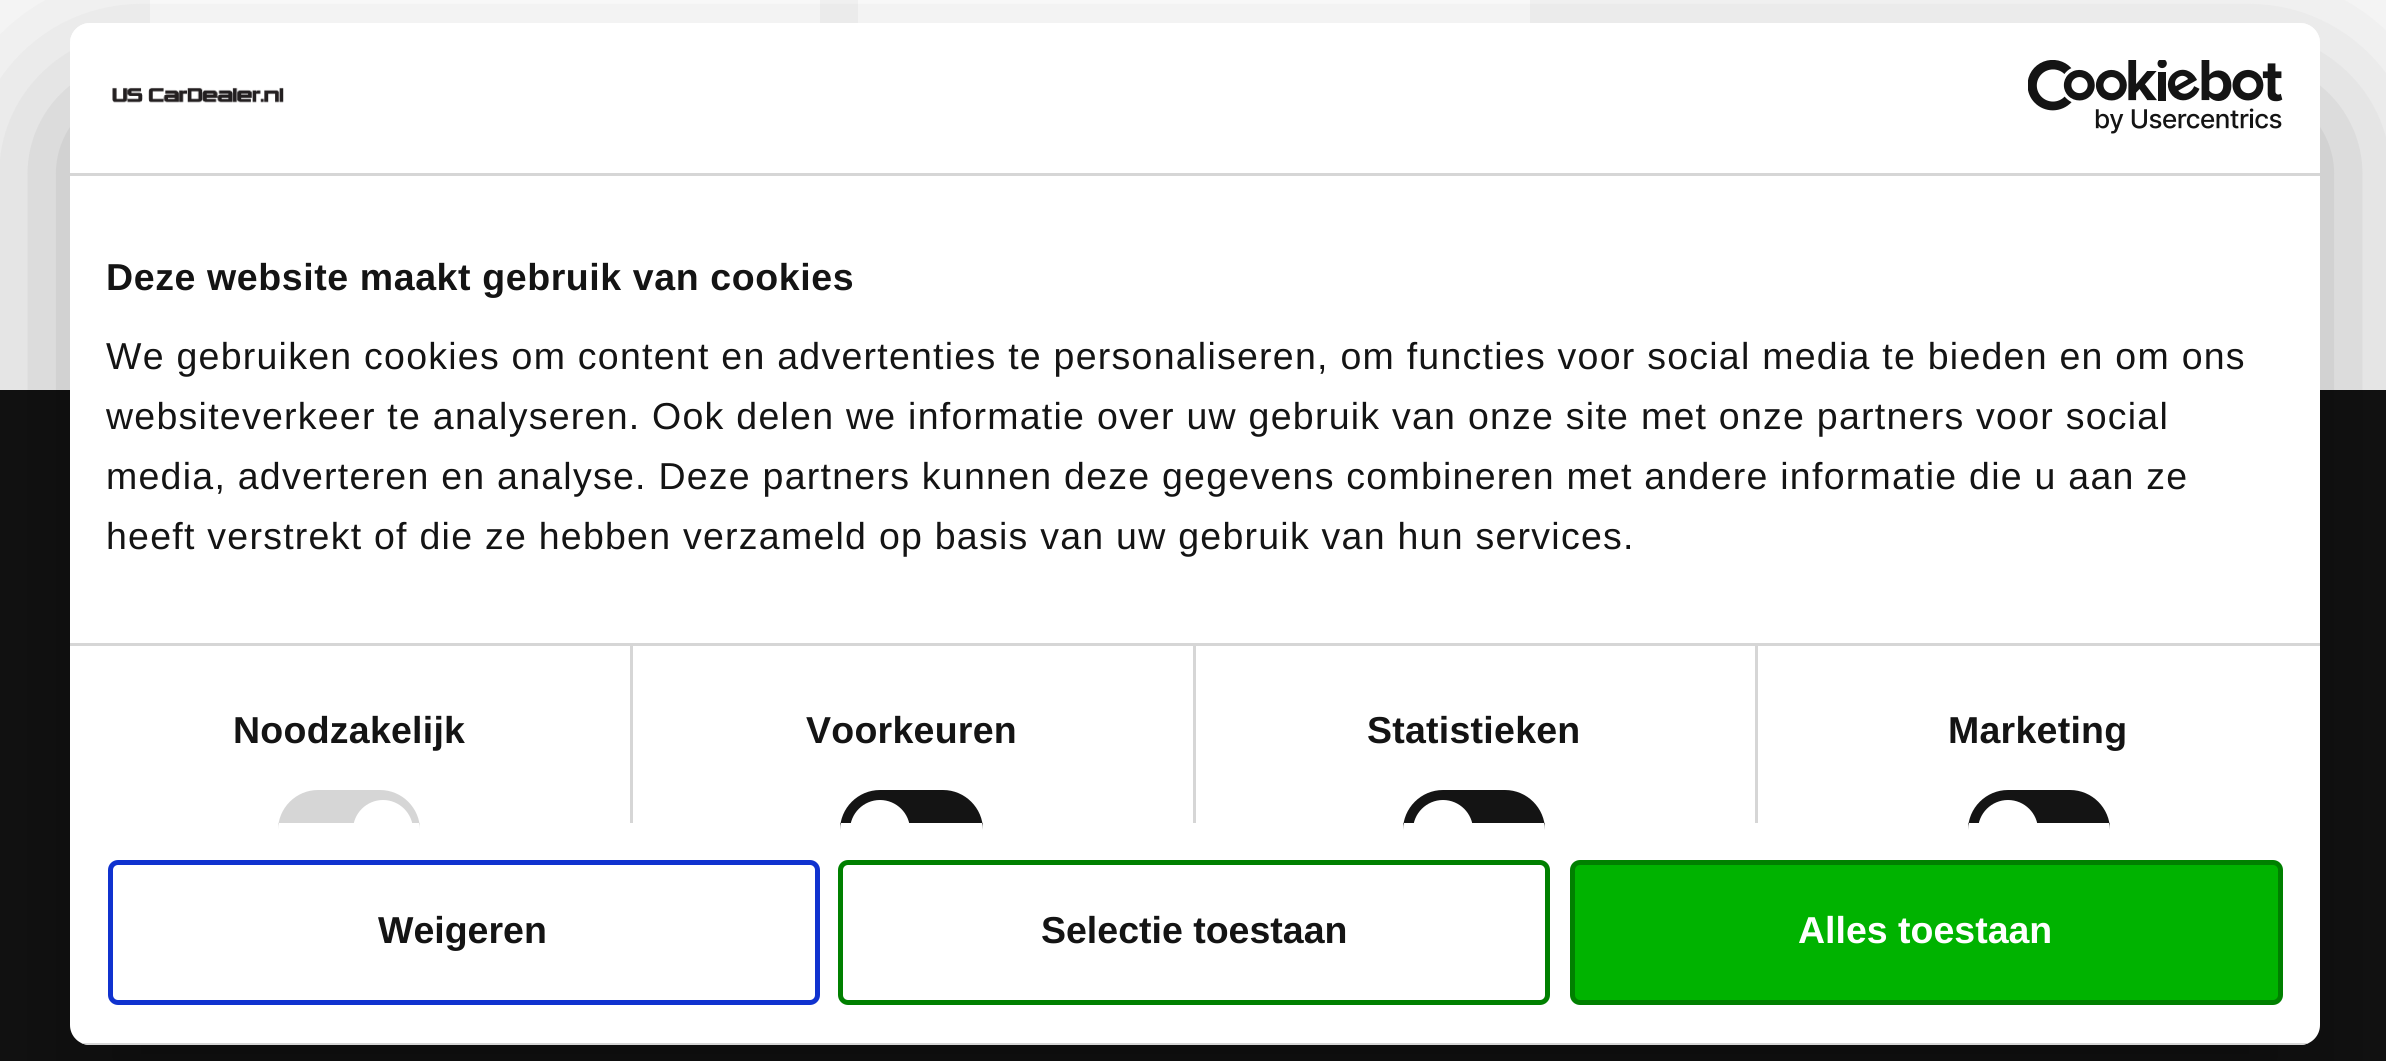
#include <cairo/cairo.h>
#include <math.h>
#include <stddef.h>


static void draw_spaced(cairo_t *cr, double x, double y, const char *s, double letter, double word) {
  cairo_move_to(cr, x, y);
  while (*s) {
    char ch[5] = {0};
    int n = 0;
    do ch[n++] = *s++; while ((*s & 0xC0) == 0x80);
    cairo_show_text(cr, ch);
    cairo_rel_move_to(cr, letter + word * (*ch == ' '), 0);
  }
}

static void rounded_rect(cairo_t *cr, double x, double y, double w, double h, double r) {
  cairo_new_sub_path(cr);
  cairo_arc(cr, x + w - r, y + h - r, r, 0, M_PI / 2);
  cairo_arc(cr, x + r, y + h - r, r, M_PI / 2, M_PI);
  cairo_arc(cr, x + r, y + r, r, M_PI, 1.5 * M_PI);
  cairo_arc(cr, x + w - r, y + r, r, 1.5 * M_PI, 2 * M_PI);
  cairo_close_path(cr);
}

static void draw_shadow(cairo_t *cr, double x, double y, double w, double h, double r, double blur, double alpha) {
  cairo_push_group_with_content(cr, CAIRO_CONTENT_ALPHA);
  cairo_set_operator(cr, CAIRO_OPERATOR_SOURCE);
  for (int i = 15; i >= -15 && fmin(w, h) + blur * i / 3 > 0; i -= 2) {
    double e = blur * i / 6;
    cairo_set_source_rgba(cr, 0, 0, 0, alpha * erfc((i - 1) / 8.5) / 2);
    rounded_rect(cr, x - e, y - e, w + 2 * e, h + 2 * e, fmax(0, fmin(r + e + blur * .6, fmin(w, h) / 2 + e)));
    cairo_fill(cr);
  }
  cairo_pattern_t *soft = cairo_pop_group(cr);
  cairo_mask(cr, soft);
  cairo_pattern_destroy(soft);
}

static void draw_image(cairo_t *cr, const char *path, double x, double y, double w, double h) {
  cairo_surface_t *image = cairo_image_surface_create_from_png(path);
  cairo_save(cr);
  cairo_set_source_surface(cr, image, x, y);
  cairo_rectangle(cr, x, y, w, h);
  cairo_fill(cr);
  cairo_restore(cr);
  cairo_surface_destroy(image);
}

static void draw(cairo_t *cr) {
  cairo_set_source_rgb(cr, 18 / 255.0, 18 / 255.0, 18 / 255.0);
  cairo_paint(cr);
  cairo_set_source_rgb(cr, 247 / 255.0, 247 / 255.0, 247 / 255.0);
  cairo_rectangle(cr, 0, 0, 2386, 390);
  cairo_fill(cr);
  cairo_set_source_rgb(cr, 1, 1, 1);
  cairo_rectangle(cr, 150, 0, 670, 23);
  cairo_fill(cr);
  cairo_rectangle(cr, 858, 0, 672, 23);
  cairo_fill(cr);
  cairo_save(cr);
  cairo_set_fill_rule(cr, CAIRO_FILL_RULE_EVEN_ODD);
  cairo_new_path(cr);
  cairo_move_to(cr, 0, 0);
  cairo_line_to(cr, 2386, 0);
  cairo_line_to(cr, 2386, 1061);
  cairo_line_to(cr, 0, 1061);
  cairo_close_path(cr);
  cairo_move_to(cr, 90, 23);
  cairo_line_to(cr, 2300, 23);
  cairo_curve_to(cr, 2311, 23, 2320, 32, 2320, 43);
  cairo_line_to(cr, 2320, 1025);
  cairo_curve_to(cr, 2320, 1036, 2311, 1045, 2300, 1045);
  cairo_line_to(cr, 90, 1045);
  cairo_curve_to(cr, 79, 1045, 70, 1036, 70, 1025);
  cairo_line_to(cr, 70, 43);
  cairo_curve_to(cr, 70, 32, 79, 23, 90, 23);
  cairo_close_path(cr);
  cairo_clip(cr);
  cairo_set_source_rgb(cr, 0, 0, 0);
  draw_shadow(cr, 70, 103, 2250, 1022, 20, 85, 0.3);
  cairo_restore(cr);
  rounded_rect(cr, 70, 23, 2250, 1022, 20);
  cairo_fill(cr);
  cairo_set_source_rgb(cr, 214 / 255.0, 214 / 255.0, 214 / 255.0);
  cairo_rectangle(cr, 70, 173, 2250, 3);
  cairo_fill(cr);
  draw_image(cr, "images/1.png", 112, 87, 172, 16);
  draw_image(cr, "images/2.png", 2028, 60, 255, 74);
  cairo_rectangle(cr, 630, 645, 3, 178);
  cairo_fill(cr);
  cairo_rectangle(cr, 1193, 645, 3, 178);
  cairo_fill(cr);
  cairo_rectangle(cr, 1755, 645, 3, 178);
  cairo_fill(cr);
  cairo_rectangle(cr, 70, 643, 2250, 3);
  cairo_fill(cr);
  cairo_new_path(cr);
  cairo_move_to(cr, 318, 790);
  cairo_line_to(cr, 380, 790);
  cairo_curve_to(cr, 402, 790, 420, 808, 420, 830);
  cairo_line_to(cr, 420, 823);
  cairo_line_to(cr, 278, 823);
  cairo_line_to(cr, 278, 830);
  cairo_curve_to(cr, 278, 808, 296, 790, 318, 790);
  cairo_close_path(cr);
  cairo_fill(cr);
  cairo_set_source_rgb(cr, 1, 1, 1);
  cairo_new_path(cr);
  cairo_move_to(cr, 383, 800);
  cairo_curve_to(cr, 399.5, 800, 413, 813.5, 413, 830);
  cairo_line_to(cr, 413, 823);
  cairo_line_to(cr, 353, 823);
  cairo_line_to(cr, 353, 830);
  cairo_curve_to(cr, 353, 813.5, 366.5, 800, 383, 800);
  cairo_close_path(cr);
  cairo_fill(cr);
  cairo_set_source_rgb(cr, 20 / 255.0, 20 / 255.0, 20 / 255.0);
  cairo_new_path(cr);
  cairo_move_to(cr, 880, 790);
  cairo_line_to(cr, 943, 790);
  cairo_curve_to(cr, 965, 790, 983, 808, 983, 830);
  cairo_line_to(cr, 983, 823);
  cairo_line_to(cr, 840, 823);
  cairo_line_to(cr, 840, 830);
  cairo_curve_to(cr, 840, 808, 858, 790, 880, 790);
  cairo_close_path(cr);
  cairo_fill(cr);
  cairo_set_source_rgb(cr, 1, 1, 1);
  cairo_new_path(cr);
  cairo_move_to(cr, 880, 800);
  cairo_curve_to(cr, 896.5, 800, 910, 813.5, 910, 830);
  cairo_line_to(cr, 910, 823);
  cairo_line_to(cr, 850, 823);
  cairo_line_to(cr, 850, 830);
  cairo_curve_to(cr, 850, 813.5, 863.5, 800, 880, 800);
  cairo_close_path(cr);
  cairo_fill(cr);
  cairo_set_source_rgb(cr, 20 / 255.0, 20 / 255.0, 20 / 255.0);
  cairo_new_path(cr);
  cairo_move_to(cr, 1443, 790);
  cairo_line_to(cr, 1505, 790);
  cairo_curve_to(cr, 1527, 790, 1545, 808, 1545, 830);
  cairo_line_to(cr, 1545, 823);
  cairo_line_to(cr, 1403, 823);
  cairo_line_to(cr, 1403, 830);
  cairo_curve_to(cr, 1403, 808, 1421, 790, 1443, 790);
  cairo_close_path(cr);
  cairo_fill(cr);
  cairo_set_source_rgb(cr, 1, 1, 1);
  cairo_new_path(cr);
  cairo_move_to(cr, 1443, 800);
  cairo_curve_to(cr, 1459.5, 800, 1473, 813.5, 1473, 830);
  cairo_line_to(cr, 1473, 823);
  cairo_line_to(cr, 1413, 823);
  cairo_line_to(cr, 1413, 830);
  cairo_curve_to(cr, 1413, 813.5, 1426.5, 800, 1443, 800);
  cairo_close_path(cr);
  cairo_fill(cr);
  cairo_set_source_rgb(cr, 20 / 255.0, 20 / 255.0, 20 / 255.0);
  cairo_new_path(cr);
  cairo_move_to(cr, 2008, 790);
  cairo_line_to(cr, 2070, 790);
  cairo_curve_to(cr, 2092, 790, 2110, 808, 2110, 830);
  cairo_line_to(cr, 2110, 823);
  cairo_line_to(cr, 1968, 823);
  cairo_line_to(cr, 1968, 830);
  cairo_curve_to(cr, 1968, 808, 1986, 790, 2008, 790);
  cairo_close_path(cr);
  cairo_fill(cr);
  cairo_set_source_rgb(cr, 1, 1, 1);
  cairo_new_path(cr);
  cairo_move_to(cr, 2008, 800);
  cairo_curve_to(cr, 2024.5, 800, 2038, 813.5, 2038, 830);
  cairo_line_to(cr, 2038, 823);
  cairo_line_to(cr, 1978, 823);
  cairo_line_to(cr, 1978, 830);
  cairo_curve_to(cr, 1978, 813.5, 1991.5, 800, 2008, 800);
  cairo_close_path(cr);
  cairo_fill(cr);
  cairo_save(cr);
  rounded_rect(cr, 70, 23, 2250, 1022, 20);
  cairo_clip(cr);
  cairo_set_source_rgb(cr, 214 / 255.0, 214 / 255.0, 214 / 255.0);
  cairo_rectangle(cr, 81, 1043, 2228, 2);
  cairo_fill(cr);
  cairo_restore(cr);
  rounded_rect(cr, 110.5, 862.5, 707, 140, 7.5);
  cairo_set_source_rgb(cr, 16 / 255.0, 50 / 255.0, 207 / 255.0);
  cairo_set_line_width(cr, 5);
  cairo_stroke(cr);
  rounded_rect(cr, 840.5, 862.5, 707, 140, 7.5);
  cairo_set_source_rgb(cr, 0, 128 / 255.0, 0);
  cairo_stroke(cr);
  cairo_set_source_rgb(cr, 0, 179 / 255.0, 0);
  rounded_rect(cr, 1572.5, 862.5, 708, 140, 7.5);
  cairo_fill_preserve(cr);
  cairo_set_source_rgb(cr, 0, 128 / 255.0, 0);
  cairo_stroke(cr);
  cairo_select_font_face(cr, "Liberation Sans", CAIRO_FONT_SLANT_NORMAL, CAIRO_FONT_WEIGHT_BOLD);
  cairo_set_font_size(cr, 37.5);
  cairo_set_source_rgb(cr, 20 / 255.0, 20 / 255.0, 20 / 255.0);
  draw_spaced(cr, 106, 290, "Deze website maakt gebruik van cookies", 0.6, 0);
  cairo_select_font_face(cr, "Liberation Sans", CAIRO_FONT_SLANT_NORMAL, CAIRO_FONT_WEIGHT_NORMAL);
  draw_spaced(cr, 106, 369, "We gebruiken cookies om content en advertenties te personaliseren, om functies voor social media te bieden en om ons", 1.25, 0);
  draw_spaced(cr, 106, 429, "websiteverkeer te analyseren. Ook delen we informatie over uw gebruik van onze site met onze partners voor social", 1.25, 0);
  draw_spaced(cr, 106, 489, "media, adverteren en analyse. Deze partners kunnen deze gegevens combineren met andere informatie die u aan ze", 1.25, 0);
  draw_spaced(cr, 106, 549, "heeft verstrekt of die ze hebben verzameld op basis van uw gebruik van hun services.", 1.25, 0);
  cairo_select_font_face(cr, "Liberation Sans", CAIRO_FONT_SLANT_NORMAL, CAIRO_FONT_WEIGHT_BOLD);
  draw_spaced(cr, 233, 743, "Noodzakelijk", 0.25, 0);
  draw_spaced(cr, 806, 743, "Voorkeuren", 0.25, 0);
  draw_spaced(cr, 1367, 743, "Statistieken", 0.25, 0);
  draw_spaced(cr, 1948, 743, "Marketing", 0.25, 0);
  cairo_move_to(cr, 378, 943);
  cairo_show_text(cr, "Weigeren");
  cairo_move_to(cr, 1041, 943);
  cairo_show_text(cr, "Selectie toestaan");
  cairo_set_source_rgb(cr, 1, 1, 1);
  cairo_move_to(cr, 1798, 943);
  cairo_show_text(cr, "Alles toestaan");
}

int main(void) {
  cairo_surface_t *surface = cairo_image_surface_create(CAIRO_FORMAT_RGB24, 2386, 1061);
  cairo_t *cr = cairo_create(surface);
  cairo_font_options_t *options = cairo_font_options_create();
  cairo_font_options_set_hint_metrics(options, CAIRO_HINT_METRICS_OFF);
  cairo_font_options_set_hint_style(options, CAIRO_HINT_STYLE_NONE);
  cairo_set_font_options(cr, options);
  cairo_set_miter_limit(cr, 4);
  draw(cr);
  cairo_surface_write_to_png(surface, "out.png");
  cairo_font_options_destroy(options);
  cairo_destroy(cr);
  cairo_surface_destroy(surface);
  return 0;
}
